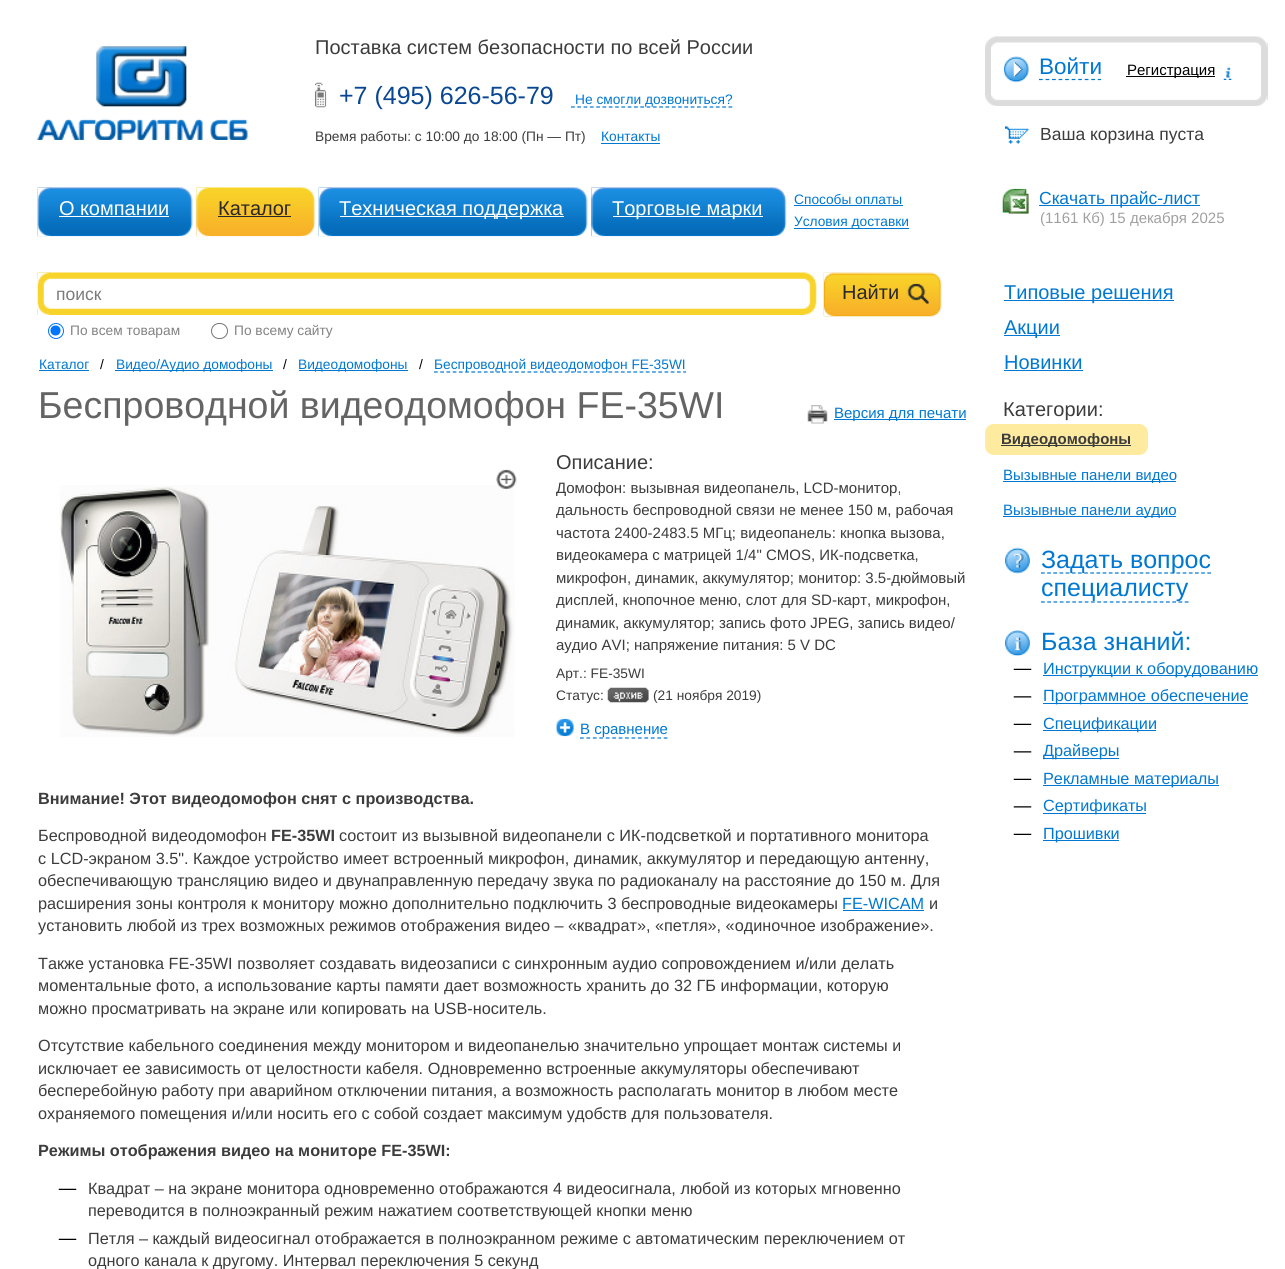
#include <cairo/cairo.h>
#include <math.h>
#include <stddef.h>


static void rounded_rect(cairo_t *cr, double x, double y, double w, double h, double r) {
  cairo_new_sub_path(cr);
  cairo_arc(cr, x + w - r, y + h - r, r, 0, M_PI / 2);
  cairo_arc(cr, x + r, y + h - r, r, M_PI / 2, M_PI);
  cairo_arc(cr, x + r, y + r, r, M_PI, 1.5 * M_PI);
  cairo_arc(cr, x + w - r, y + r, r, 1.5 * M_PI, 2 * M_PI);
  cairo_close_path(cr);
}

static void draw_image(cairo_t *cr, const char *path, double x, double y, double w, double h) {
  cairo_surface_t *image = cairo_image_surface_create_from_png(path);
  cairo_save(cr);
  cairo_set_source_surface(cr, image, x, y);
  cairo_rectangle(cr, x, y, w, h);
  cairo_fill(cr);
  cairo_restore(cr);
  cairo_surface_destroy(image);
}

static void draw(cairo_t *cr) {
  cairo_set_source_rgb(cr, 1, 1, 1);
  cairo_paint(cr);
  draw_image(cr, "images/1.png", 37, 46, 211, 94);
  draw_image(cr, "images/2.png", 315, 82, 12, 26);
  cairo_new_path(cr);
  cairo_move_to(cr, 571, 107);
  cairo_line_to(cr, 732.5, 107);
  cairo_set_source_rgb(cr, 0, 120 / 255.0, 210 / 255.0);
  cairo_set_line_width(cr, 1.2);
  cairo_set_dash(cr, (double[]){3.75, 2.55}, 2, 0);
  cairo_stroke(cr);
  cairo_rectangle(cr, 601, 143, 59, 1);
  cairo_fill(cr);
  cairo_set_source_rgb(cr, 220 / 255.0, 220 / 255.0, 220 / 255.0);
  cairo_rectangle(cr, 1261, 43, 7, 57);
  cairo_fill(cr);
  cairo_rectangle(cr, 985, 43, 6, 57);
  cairo_fill(cr);
  draw_image(cr, "images/3.png", 985, 36, 283, 12);
  draw_image(cr, "images/4.png", 1003, 56, 26, 27);
  cairo_new_path(cr);
  cairo_move_to(cr, 1039, 79.5);
  cairo_line_to(cr, 1101, 79.5);
  cairo_set_source_rgb(cr, 0, 120 / 255.0, 210 / 255.0);
  cairo_set_dash(cr, (double[]){3.75, 2.78}, 2, 0);
  cairo_stroke(cr);
  cairo_set_source_rgb(cr, 0, 0, 0);
  cairo_rectangle(cr, 1126, 76, 89, 1);
  cairo_fill(cr);
  draw_image(cr, "images/5.png", 1223, 67, 9, 13);
  draw_image(cr, "images/6.png", 985, 95, 283, 11);
  draw_image(cr, "images/7.png", 1005, 126, 24, 18);
  draw_image(cr, "images/8.png", 1002, 188, 27, 26);
  cairo_set_source_rgb(cr, 0, 120 / 255.0, 210 / 255.0);
  cairo_rectangle(cr, 1039, 205, 161, 1);
  cairo_fill(cr);
  draw_image(cr, "images/9.png", 37, 187, 156, 50);
  draw_image(cr, "images/10.png", 37, 187, 14, 49);
  cairo_set_source_rgb(cr, 1, 1, 1);
  cairo_rectangle(cr, 59, 216, 110, 1);
  cairo_fill(cr);
  draw_image(cr, "images/11.png", 196, 187, 119, 50);
  draw_image(cr, "images/12.png", 196, 187, 14, 49);
  cairo_set_source_rgb(cr, 40 / 255.0, 40 / 255.0, 40 / 255.0);
  cairo_rectangle(cr, 218, 216, 73, 1);
  cairo_fill(cr);
  draw_image(cr, "images/13.png", 318, 187, 270, 50);
  draw_image(cr, "images/14.png", 318, 187, 15, 49);
  cairo_set_source_rgb(cr, 1, 1, 1);
  cairo_rectangle(cr, 340, 216, 224, 1);
  cairo_fill(cr);
  draw_image(cr, "images/15.png", 591, 187, 196, 50);
  draw_image(cr, "images/16.png", 591, 187, 14, 49);
  cairo_rectangle(cr, 613, 216, 150, 1);
  cairo_fill(cr);
  cairo_set_source_rgb(cr, 0, 120 / 255.0, 210 / 255.0);
  cairo_rectangle(cr, 794, 205, 109, 1);
  cairo_fill(cr);
  cairo_rectangle(cr, 794, 228, 115, 1);
  cairo_fill(cr);
  draw_image(cr, "images/17.png", 37, 272, 780, 43);
  draw_image(cr, "images/18.png", 37, 272, 13, 43);
  cairo_set_source_rgb(cr, 1, 1, 1);
  cairo_rectangle(cr, 49, 279, 756, 29);
  cairo_fill(cr);
  draw_image(cr, "images/19.png", 823, 272, 119, 45);
  draw_image(cr, "images/20.png", 823, 272, 12, 45);
  draw_image(cr, "images/21.png", 907, 283, 22, 21);
  cairo_arc(cr, 56, 331, 7.5, 0, 2 * M_PI);
  cairo_set_source_rgb(cr, 0, 117 / 255.0, 1);
  cairo_set_line_width(cr, 1);
  cairo_set_dash(cr, NULL, 0, 0);
  cairo_stroke(cr);
  cairo_arc(cr, 55.5, 330.5, 5, 0, 2 * M_PI);
  cairo_fill(cr);
  rounded_rect(cr, 211.5, 323.5, 16, 15, 7.5);
  cairo_set_source_rgb(cr, 118 / 255.0, 118 / 255.0, 118 / 255.0);
  cairo_stroke(cr);
  cairo_set_source_rgb(cr, 0, 120 / 255.0, 210 / 255.0);
  cairo_rectangle(cr, 39, 370, 50, 1);
  cairo_fill(cr);
  cairo_rectangle(cr, 115, 370, 158, 1);
  cairo_fill(cr);
  cairo_rectangle(cr, 299, 370, 109, 1);
  cairo_fill(cr);
  cairo_new_path(cr);
  cairo_move_to(cr, 434, 372);
  cairo_line_to(cr, 686, 372);
  cairo_set_line_width(cr, 1.2);
  cairo_set_dash(cr, (double[]){3.75, 2.48}, 2, 0);
  cairo_stroke(cr);
  cairo_rectangle(cr, 1004, 300, 170, 1);
  cairo_fill(cr);
  cairo_rectangle(cr, 1004, 335, 56, 1);
  cairo_fill(cr);
  cairo_rectangle(cr, 1004, 370, 79, 1);
  cairo_fill(cr);
  cairo_set_source_rgb(cr, 1, 235 / 255.0, 160 / 255.0);
  rounded_rect(cr, 985, 424, 163, 31, 9);
  cairo_fill(cr);
  cairo_set_source_rgb(cr, 57 / 255.0, 57 / 255.0, 57 / 255.0);
  cairo_rectangle(cr, 1001, 445, 130, 1);
  cairo_fill(cr);
  cairo_set_source_rgb(cr, 0, 120 / 255.0, 210 / 255.0);
  cairo_rectangle(cr, 1003, 481, 173, 1);
  cairo_fill(cr);
  cairo_rectangle(cr, 1003, 516, 173, 1);
  cairo_fill(cr);
  draw_image(cr, "images/22.png", 1005, 547, 25, 27);
  cairo_new_path(cr);
  cairo_move_to(cr, 1041, 573);
  cairo_line_to(cr, 1211, 573);
  cairo_set_dash(cr, (double[]){3.75, 2.41}, 2, 0);
  cairo_stroke(cr);
  cairo_new_path(cr);
  cairo_move_to(cr, 1041, 602);
  cairo_line_to(cr, 1189, 602);
  cairo_set_dash(cr, (double[]){3.75, 2.5}, 2, 0);
  cairo_stroke(cr);
  draw_image(cr, "images/23.png", 1005, 630, 25, 26);
  draw_image(cr, "images/24.png", 1013, 668, 19, 2);
  cairo_rectangle(cr, 1043, 675, 215, 1);
  cairo_fill(cr);
  draw_image(cr, "images/25.png", 1013, 696, 19, 2);
  cairo_rectangle(cr, 1043, 703, 205, 1);
  cairo_fill(cr);
  draw_image(cr, "images/24.png", 1013, 723, 19, 2);
  cairo_rectangle(cr, 1043, 730, 113, 1);
  cairo_fill(cr);
  draw_image(cr, "images/25.png", 1013, 751, 19, 2);
  cairo_rectangle(cr, 1043, 758, 76, 1);
  cairo_fill(cr);
  draw_image(cr, "images/24.png", 1013, 778, 19, 2);
  cairo_rectangle(cr, 1043, 785, 176, 1);
  cairo_fill(cr);
  draw_image(cr, "images/25.png", 1013, 806, 19, 2);
  cairo_rectangle(cr, 1043, 813, 103, 1);
  cairo_fill(cr);
  draw_image(cr, "images/24.png", 1013, 833, 19, 2);
  cairo_rectangle(cr, 1043, 840, 76, 1);
  cairo_fill(cr);
  draw_image(cr, "images/26.png", 807, 405, 21, 19);
  cairo_rectangle(cr, 834, 419, 132, 1);
  cairo_fill(cr);
  draw_image(cr, "images/28.png", 59, 485, 456, 252);
  draw_image(cr, "images/27.png", 496, 469, 21, 20);
  draw_image(cr, "images/29.png", 607, 687, 42, 16);
  draw_image(cr, "images/30.png", 556, 718, 18, 19);
  cairo_new_path(cr);
  cairo_move_to(cr, 580, 738);
  cairo_line_to(cr, 667.5, 738);
  cairo_set_dash(cr, (double[]){3.75, 2.69}, 2, 0);
  cairo_stroke(cr);
  cairo_rectangle(cr, 843, 910, 81, 1);
  cairo_fill(cr);
  draw_image(cr, "images/24.png", 58, 1188, 19, 2);
  draw_image(cr, "images/24.png", 58, 1238, 19, 2);
  cairo_select_font_face(cr, "Liberation Sans", CAIRO_FONT_SLANT_NORMAL, CAIRO_FONT_WEIGHT_NORMAL);
  cairo_set_font_size(cr, 20);
  cairo_set_source_rgb(cr, 60 / 255.0, 60 / 255.0, 60 / 255.0);
  cairo_move_to(cr, 315, 54);
  cairo_show_text(cr, "Поставка систем безопасности по всей России");
  cairo_set_font_size(cr, 25);
  cairo_set_source_rgb(cr, 10 / 255.0, 71 / 255.0, 147 / 255.0);
  cairo_move_to(cr, 339, 104);
  cairo_show_text(cr, "+7 (495) 626-56-79");
  cairo_set_font_size(cr, 13.75);
  cairo_set_source_rgb(cr, 0, 120 / 255.0, 210 / 255.0);
  cairo_move_to(cr, 575, 104);
  cairo_show_text(cr, "Не смогли дозвониться?");
  cairo_set_source_rgb(cr, 60 / 255.0, 60 / 255.0, 60 / 255.0);
  cairo_move_to(cr, 315, 141);
  cairo_show_text(cr, "Время работы: с 10:00 до 18:00 (Пн — Пт)");
  cairo_set_source_rgb(cr, 0, 120 / 255.0, 210 / 255.0);
  cairo_move_to(cr, 601, 141);
  cairo_show_text(cr, "Контакты");
  cairo_set_font_size(cr, 22.5);
  cairo_move_to(cr, 1039, 74);
  cairo_show_text(cr, "Войти");
  cairo_set_font_size(cr, 15);
  cairo_set_source_rgb(cr, 0, 0, 0);
  cairo_move_to(cr, 1127, 75);
  cairo_show_text(cr, "Регистрация");
  cairo_set_font_size(cr, 17.5);
  cairo_set_source_rgb(cr, 60 / 255.0, 60 / 255.0, 60 / 255.0);
  cairo_move_to(cr, 1040, 140);
  cairo_show_text(cr, "Ваша корзина пуста");
  cairo_set_source_rgb(cr, 0, 120 / 255.0, 210 / 255.0);
  cairo_move_to(cr, 1039, 204);
  cairo_show_text(cr, "Скачать прайс-лист");
  cairo_set_font_size(cr, 15);
  cairo_set_source_rgb(cr, 160 / 255.0, 160 / 255.0, 160 / 255.0);
  cairo_move_to(cr, 1040, 223);
  cairo_show_text(cr, "(1161 Кб) 15 декабря 2025");
  cairo_set_font_size(cr, 20);
  cairo_set_source_rgb(cr, 1, 1, 1);
  cairo_move_to(cr, 59, 215);
  cairo_show_text(cr, "О компании");
  cairo_set_source_rgb(cr, 40 / 255.0, 40 / 255.0, 40 / 255.0);
  cairo_move_to(cr, 218, 215);
  cairo_show_text(cr, "Каталог");
  cairo_set_source_rgb(cr, 1, 1, 1);
  cairo_move_to(cr, 339, 215);
  cairo_show_text(cr, "Техническая поддержка");
  cairo_move_to(cr, 612, 215);
  cairo_show_text(cr, "Торговые марки");
  cairo_set_font_size(cr, 13.75);
  cairo_set_source_rgb(cr, 0, 120 / 255.0, 210 / 255.0);
  cairo_move_to(cr, 794, 204);
  cairo_show_text(cr, "Способы оплаты");
  cairo_move_to(cr, 794, 226);
  cairo_show_text(cr, "Условия доставки");
  cairo_set_font_size(cr, 17.5);
  cairo_set_source_rgb(cr, 122 / 255.0, 122 / 255.0, 122 / 255.0);
  cairo_move_to(cr, 56, 300);
  cairo_show_text(cr, "поиск");
  cairo_set_font_size(cr, 20);
  cairo_set_source_rgb(cr, 40 / 255.0, 40 / 255.0, 40 / 255.0);
  cairo_move_to(cr, 842, 299);
  cairo_show_text(cr, "Найти");
  cairo_set_font_size(cr, 13.75);
  cairo_set_source_rgb(cr, 130 / 255.0, 130 / 255.0, 130 / 255.0);
  cairo_move_to(cr, 70, 335);
  cairo_show_text(cr, "По всем товарам");
  cairo_move_to(cr, 234, 335);
  cairo_show_text(cr, "По всему сайту");
  cairo_set_source_rgb(cr, 0, 120 / 255.0, 210 / 255.0);
  cairo_move_to(cr, 39, 369);
  cairo_show_text(cr, "Каталог");
  cairo_set_source_rgb(cr, 0, 0, 0);
  cairo_move_to(cr, 100, 369);
  cairo_show_text(cr, "/");
  cairo_set_source_rgb(cr, 0, 120 / 255.0, 210 / 255.0);
  cairo_move_to(cr, 116, 369);
  cairo_show_text(cr, "Видео/Аудио домофоны");
  cairo_set_source_rgb(cr, 0, 0, 0);
  cairo_move_to(cr, 283, 369);
  cairo_show_text(cr, "/");
  cairo_set_source_rgb(cr, 0, 120 / 255.0, 210 / 255.0);
  cairo_move_to(cr, 298, 369);
  cairo_show_text(cr, "Видеодомофоны");
  cairo_set_source_rgb(cr, 0, 0, 0);
  cairo_move_to(cr, 419, 369);
  cairo_show_text(cr, "/");
  cairo_set_source_rgb(cr, 0, 120 / 255.0, 210 / 255.0);
  cairo_move_to(cr, 434, 369);
  cairo_show_text(cr, "Беспроводной видеодомофон FE-35WI");
  cairo_set_font_size(cr, 20);
  cairo_move_to(cr, 1004, 299);
  cairo_show_text(cr, "Типовые решения");
  cairo_move_to(cr, 1004, 334);
  cairo_show_text(cr, "Акции");
  cairo_move_to(cr, 1004, 369);
  cairo_show_text(cr, "Новинки");
  cairo_set_source_rgb(cr, 60 / 255.0, 60 / 255.0, 60 / 255.0);
  cairo_move_to(cr, 1003, 416);
  cairo_show_text(cr, "Категории:");
  cairo_select_font_face(cr, "Liberation Sans", CAIRO_FONT_SLANT_NORMAL, CAIRO_FONT_WEIGHT_BOLD);
  cairo_set_font_size(cr, 15);
  cairo_move_to(cr, 1001, 444);
  cairo_show_text(cr, "Видеодомофоны");
  cairo_select_font_face(cr, "Liberation Sans", CAIRO_FONT_SLANT_NORMAL, CAIRO_FONT_WEIGHT_NORMAL);
  cairo_set_source_rgb(cr, 0, 120 / 255.0, 210 / 255.0);
  cairo_move_to(cr, 1003, 480);
  cairo_show_text(cr, "Вызывные панели видео");
  cairo_move_to(cr, 1003, 515);
  cairo_show_text(cr, "Вызывные панели аудио");
  cairo_set_font_size(cr, 25);
  cairo_move_to(cr, 1041, 568);
  cairo_show_text(cr, "Задать вопрос");
  cairo_move_to(cr, 1041, 596);
  cairo_show_text(cr, "специалисту");
  cairo_move_to(cr, 1041, 650);
  cairo_show_text(cr, "База знаний:");
  cairo_set_font_size(cr, 16.25);
  cairo_move_to(cr, 1043, 674);
  cairo_show_text(cr, "Инструкции к оборудованию");
  cairo_move_to(cr, 1043, 701);
  cairo_show_text(cr, "Программное обеспечение");
  cairo_move_to(cr, 1043, 729);
  cairo_show_text(cr, "Спецификации");
  cairo_move_to(cr, 1043, 756);
  cairo_show_text(cr, "Драйверы");
  cairo_move_to(cr, 1043, 784);
  cairo_show_text(cr, "Рекламные материалы");
  cairo_move_to(cr, 1043, 811);
  cairo_show_text(cr, "Сертификаты");
  cairo_move_to(cr, 1043, 839);
  cairo_show_text(cr, "Прошивки");
  cairo_set_font_size(cr, 37.5);
  cairo_set_source_rgb(cr, 100 / 255.0, 100 / 255.0, 100 / 255.0);
  cairo_move_to(cr, 38, 418);
  cairo_show_text(cr, "Беспроводной видеодомофон FE-35WI");
  cairo_set_font_size(cr, 15);
  cairo_set_source_rgb(cr, 0, 120 / 255.0, 210 / 255.0);
  cairo_move_to(cr, 834, 418);
  cairo_show_text(cr, "Версия для печати");
  cairo_set_font_size(cr, 20);
  cairo_set_source_rgb(cr, 60 / 255.0, 60 / 255.0, 60 / 255.0);
  cairo_move_to(cr, 556, 469);
  cairo_show_text(cr, "Описание:");
  cairo_set_font_size(cr, 15);
  cairo_move_to(cr, 556, 493);
  cairo_show_text(cr, "Домофон: вызывная видеопанель, LCD-монитор,");
  cairo_move_to(cr, 556, 515);
  cairo_show_text(cr, "дальность беспроводной связи не менее 150 м, рабочая");
  cairo_move_to(cr, 556, 538);
  cairo_show_text(cr, "частота 2400-2483.5 МГц; видеопанель: кнопка вызова,");
  cairo_move_to(cr, 556, 560);
  cairo_show_text(cr, "видеокамера с матрицей 1/4\" CMOS, ИК-подсветка,");
  cairo_move_to(cr, 556, 583);
  cairo_show_text(cr, "микрофон, динамик, аккумулятор; монитор: 3.5-дюймовый");
  cairo_move_to(cr, 556, 605);
  cairo_show_text(cr, "дисплей, кнопочное меню, слот для SD-карт, микрофон,");
  cairo_move_to(cr, 556, 628);
  cairo_show_text(cr, "динамик, аккумулятор; запись фото JPEG, запись видео/");
  cairo_move_to(cr, 556, 650);
  cairo_show_text(cr, "аудио AVI; напряжение питания: 5 V DC");
  cairo_set_font_size(cr, 13.75);
  cairo_move_to(cr, 556, 678);
  cairo_show_text(cr, "Арт.: FE-35WI");
  cairo_move_to(cr, 556, 700);
  cairo_show_text(cr, "Статус:");
  cairo_move_to(cr, 653, 700);
  cairo_show_text(cr, "(21 ноября 2019)");
  cairo_set_font_size(cr, 15);
  cairo_set_source_rgb(cr, 0, 120 / 255.0, 210 / 255.0);
  cairo_move_to(cr, 580, 734);
  cairo_show_text(cr, "В сравнение");
  cairo_select_font_face(cr, "Liberation Sans", CAIRO_FONT_SLANT_NORMAL, CAIRO_FONT_WEIGHT_BOLD);
  cairo_set_font_size(cr, 16.25);
  cairo_set_source_rgb(cr, 60 / 255.0, 60 / 255.0, 60 / 255.0);
  cairo_move_to(cr, 38, 804);
  cairo_show_text(cr, "Внимание! Этот видеодомофон снят с производства.");
  cairo_select_font_face(cr, "Liberation Sans", CAIRO_FONT_SLANT_NORMAL, CAIRO_FONT_WEIGHT_NORMAL);
  cairo_move_to(cr, 38, 841);
  cairo_show_text(cr, "Беспроводной видеодомофон");
  cairo_select_font_face(cr, "Liberation Sans", CAIRO_FONT_SLANT_NORMAL, CAIRO_FONT_WEIGHT_BOLD);
  cairo_move_to(cr, 271, 841);
  cairo_show_text(cr, "FE-35WI");
  cairo_select_font_face(cr, "Liberation Sans", CAIRO_FONT_SLANT_NORMAL, CAIRO_FONT_WEIGHT_NORMAL);
  cairo_move_to(cr, 339, 841);
  cairo_show_text(cr, "состоит из вызывной видеопанели с ИК-подсветкой и портативного монитора");
  cairo_move_to(cr, 38, 864);
  cairo_show_text(cr, "с LCD-экраном 3.5\". Каждое устройство имеет встроенный микрофон, динамик, аккумулятор и передающую антенну,");
  cairo_move_to(cr, 38, 886);
  cairo_show_text(cr, "обеспечивающую трансляцию видео и двунаправленную передачу звука по радиоканалу на расстояние до 150 м. Для");
  cairo_move_to(cr, 38, 909);
  cairo_show_text(cr, "расширения зоны контроля к монитору можно дополнительно подключить 3 беспроводные видеокамеры");
  cairo_set_source_rgb(cr, 0, 120 / 255.0, 210 / 255.0);
  cairo_move_to(cr, 842, 909);
  cairo_show_text(cr, "FE-WICAM");
  cairo_set_source_rgb(cr, 60 / 255.0, 60 / 255.0, 60 / 255.0);
  cairo_move_to(cr, 929, 909);
  cairo_show_text(cr, "и");
  cairo_move_to(cr, 38, 931);
  cairo_show_text(cr, "установить любой из трех возможных режимов отображения видео – «квадрат», «петля», «одиночное изображение».");
  cairo_move_to(cr, 38, 969);
  cairo_show_text(cr, "Также установка FE-35WI позволяет создавать видеозаписи с синхронным аудио сопровождением и/или делать");
  cairo_move_to(cr, 38, 991);
  cairo_show_text(cr, "моментальные фото, а использование карты памяти дает возможность хранить до 32 ГБ информации, которую");
  cairo_move_to(cr, 38, 1014);
  cairo_show_text(cr, "можно просматривать на экране или копировать на USB-носитель.");
  cairo_move_to(cr, 38, 1051);
  cairo_show_text(cr, "Отсутствие кабельного соединения между монитором и видеопанелью значительно упрощает монтаж системы и");
  cairo_move_to(cr, 38, 1074);
  cairo_show_text(cr, "исключает ее зависимость от целостности кабеля. Одновременно встроенные аккумуляторы обеспечивают");
  cairo_move_to(cr, 38, 1096);
  cairo_show_text(cr, "бесперебойную работу при аварийном отключении питания, а возможность располагать монитор в любом месте");
  cairo_move_to(cr, 38, 1119);
  cairo_show_text(cr, "охраняемого помещения и/или носить его с собой создает максимум удобств для пользователя.");
  cairo_select_font_face(cr, "Liberation Sans", CAIRO_FONT_SLANT_NORMAL, CAIRO_FONT_WEIGHT_BOLD);
  cairo_move_to(cr, 38, 1156);
  cairo_show_text(cr, "Режимы отображения видео на мониторе FE-35WI:");
  cairo_select_font_face(cr, "Liberation Sans", CAIRO_FONT_SLANT_NORMAL, CAIRO_FONT_WEIGHT_NORMAL);
  cairo_move_to(cr, 88, 1194);
  cairo_show_text(cr, "Квадрат – на экране монитора одновременно отображаются 4 видеосигнала, любой из которых мгновенно");
  cairo_move_to(cr, 88, 1216);
  cairo_show_text(cr, "переводится в полноэкранный режим нажатием соответствующей кнопки меню");
  cairo_move_to(cr, 88, 1244);
  cairo_show_text(cr, "Петля – каждый видеосигнал отображается в полноэкранном режиме с автоматическим переключением от");
  cairo_move_to(cr, 88, 1266);
  cairo_show_text(cr, "одного канала к другому. Интервал переключения 5 секунд");
}

int main(void) {
  cairo_surface_t *surface = cairo_image_surface_create(CAIRO_FORMAT_RGB24, 1285, 1269);
  cairo_t *cr = cairo_create(surface);
  cairo_font_options_t *options = cairo_font_options_create();
  cairo_font_options_set_hint_metrics(options, CAIRO_HINT_METRICS_OFF);
  cairo_font_options_set_hint_style(options, CAIRO_HINT_STYLE_NONE);
  cairo_set_font_options(cr, options);
  cairo_set_miter_limit(cr, 4);
  draw(cr);
  cairo_surface_write_to_png(surface, "out.png");
  cairo_font_options_destroy(options);
  cairo_destroy(cr);
  cairo_surface_destroy(surface);
  return 0;
}
